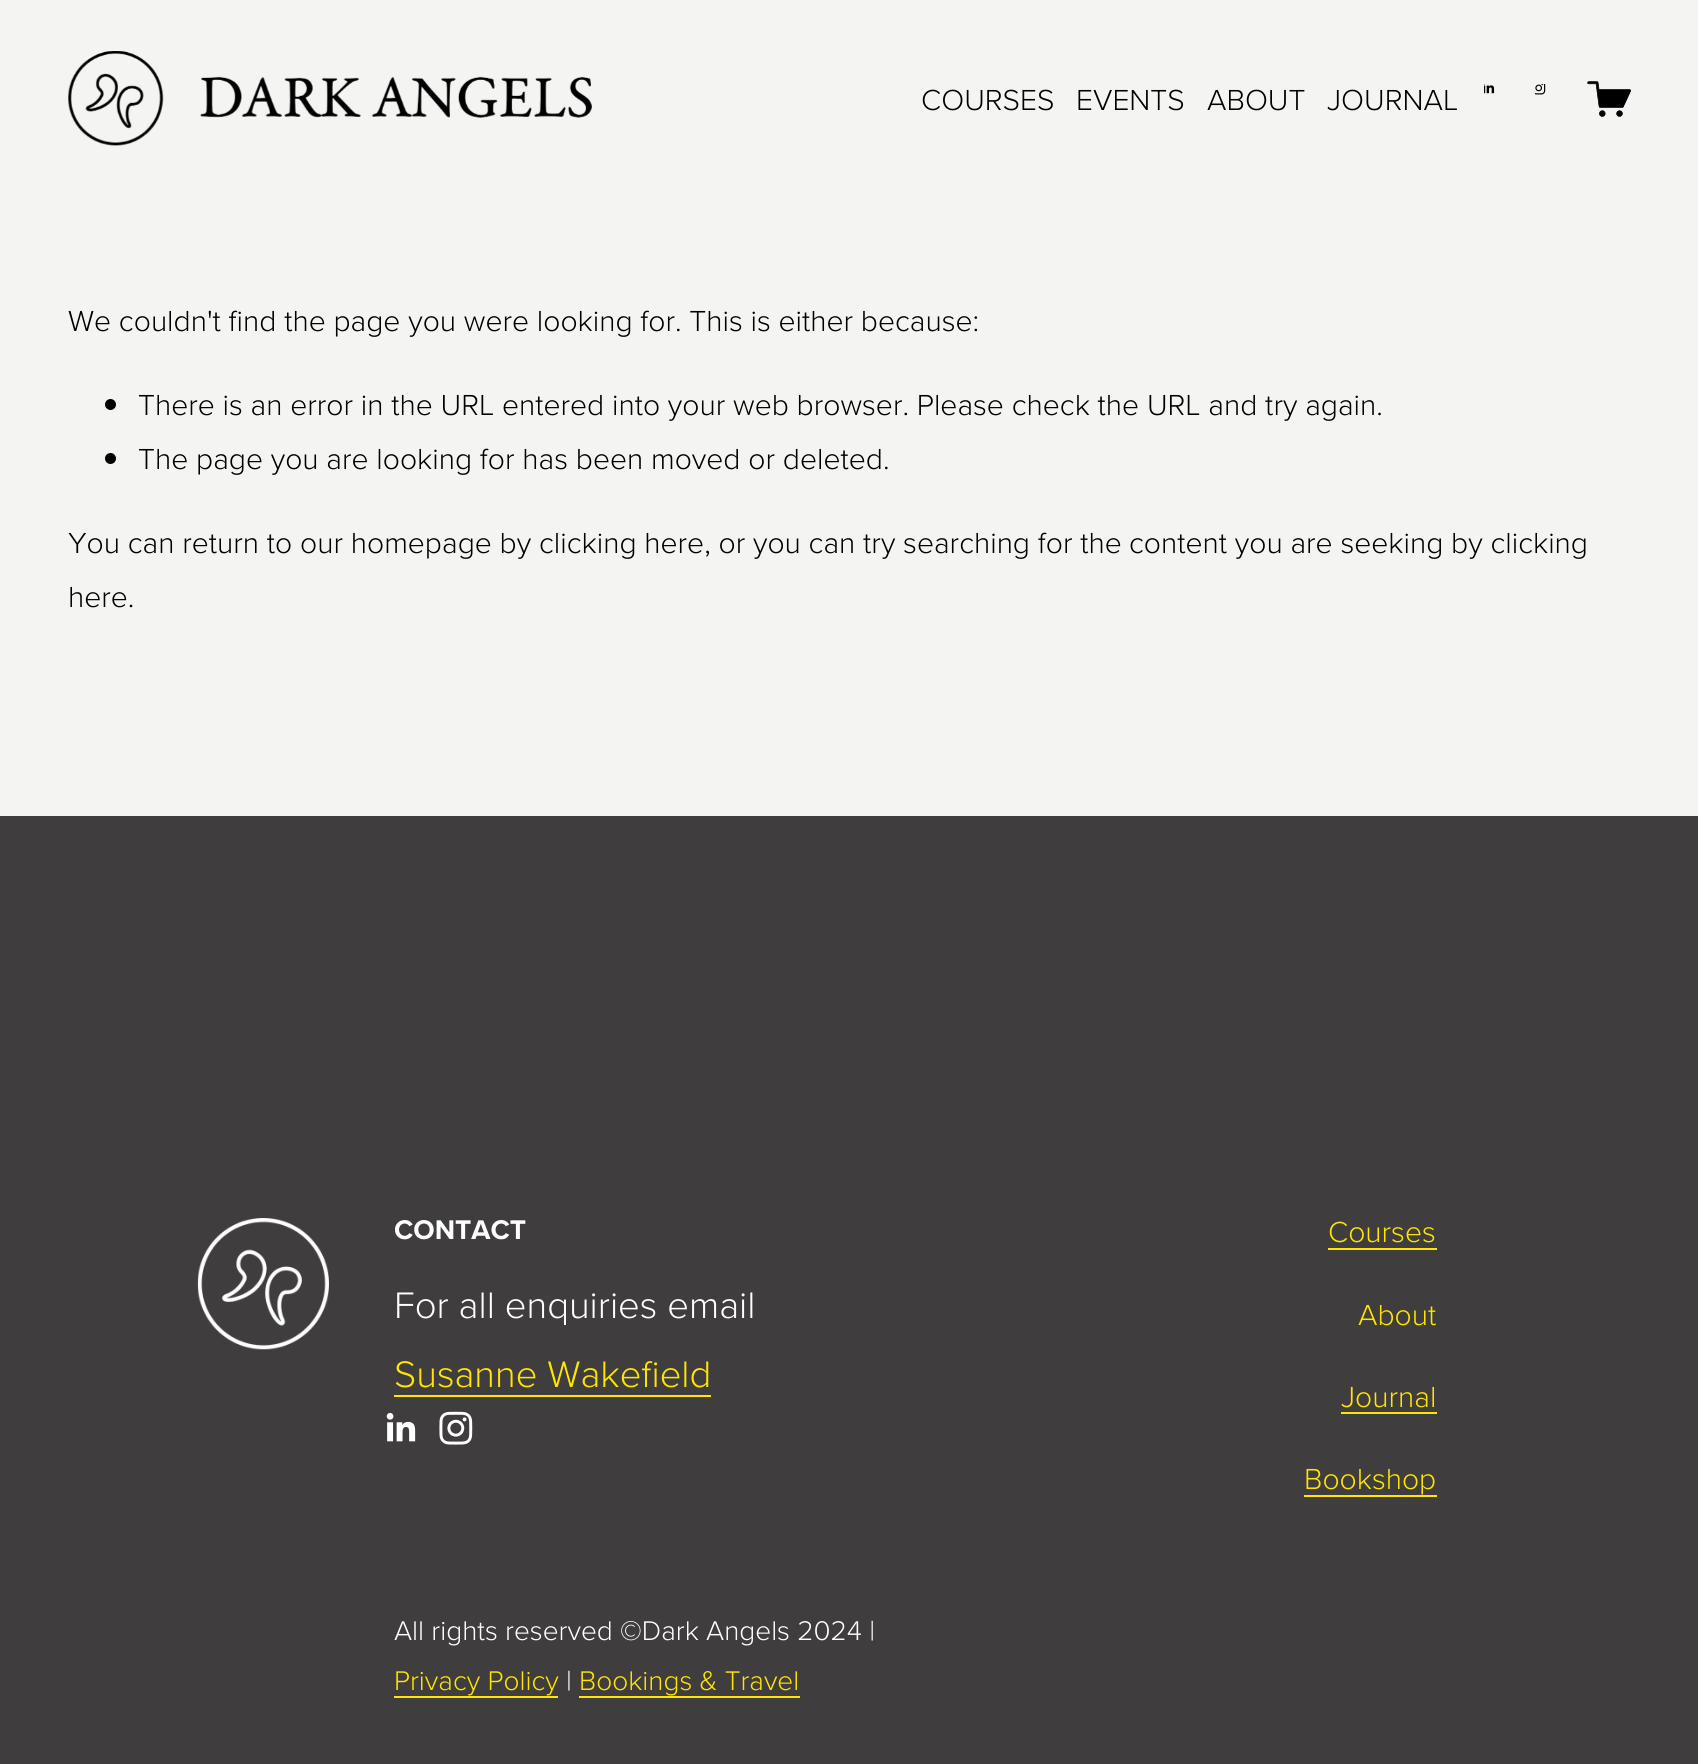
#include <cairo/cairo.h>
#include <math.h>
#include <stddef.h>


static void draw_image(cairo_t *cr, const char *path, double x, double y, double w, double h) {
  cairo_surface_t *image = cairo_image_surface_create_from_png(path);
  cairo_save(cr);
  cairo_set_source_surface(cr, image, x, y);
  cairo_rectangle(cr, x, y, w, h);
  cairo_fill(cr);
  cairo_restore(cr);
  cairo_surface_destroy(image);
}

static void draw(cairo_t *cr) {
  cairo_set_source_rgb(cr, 244 / 255.0, 244 / 255.0, 243 / 255.0);
  cairo_paint(cr);
  draw_image(cr, "images/1.png", 68, 51, 524, 95);
  draw_image(cr, "images/2.png", 1484, 84, 11, 10);
  draw_image(cr, "images/3.png", 1535, 84, 11, 11);
  draw_image(cr, "images/4.png", 1587, 81, 44, 36);
  cairo_set_source_rgb(cr, 0, 0, 0);
  cairo_arc(cr, 110.5, 404.5, 5.5, 0, 2 * M_PI);
  cairo_fill(cr);
  cairo_arc(cr, 110.5, 458.5, 5.5, 0, 2 * M_PI);
  cairo_fill(cr);
  cairo_set_source_rgb(cr, 63 / 255.0, 61 / 255.0, 61 / 255.0);
  cairo_rectangle(cr, 0, 816, 1698, 948);
  cairo_fill(cr);
  draw_image(cr, "images/5.png", 197, 1218, 132, 132);
  cairo_set_source_rgb(cr, 1, 229 / 255.0, 0);
  cairo_rectangle(cr, 1328, 1248, 109, 2);
  cairo_fill(cr);
  cairo_rectangle(cr, 1341, 1412, 96, 2);
  cairo_fill(cr);
  cairo_rectangle(cr, 1304, 1495, 133, 2);
  cairo_fill(cr);
  cairo_rectangle(cr, 394, 1395, 317, 2);
  cairo_fill(cr);
  draw_image(cr, "images/6.png", 386, 1412, 30, 30);
  draw_image(cr, "images/7.png", 439, 1411, 34, 34);
  cairo_rectangle(cr, 394, 1696, 164, 2);
  cairo_fill(cr);
  cairo_rectangle(cr, 579, 1696, 221, 2);
  cairo_fill(cr);
  cairo_select_font_face(cr, "Proxima Nova Light", CAIRO_FONT_SLANT_NORMAL, CAIRO_FONT_WEIGHT_NORMAL);
  cairo_set_font_size(cr, 30.05);
  cairo_set_source_rgb(cr, 0, 0, 0);
  cairo_move_to(cr, 921, 110);
  cairo_show_text(cr, "COURSES");
  cairo_move_to(cr, 1076, 110);
  cairo_show_text(cr, "EVENTS");
  cairo_move_to(cr, 1207, 110);
  cairo_show_text(cr, "ABOUT");
  cairo_move_to(cr, 1327, 110);
  cairo_show_text(cr, "JOURNAL");
  cairo_move_to(cr, 68, 331);
  cairo_show_text(cr, "We couldn't find the page you were looking for. This is either because:");
  cairo_move_to(cr, 138, 415);
  cairo_show_text(cr, "There is an error in the URL entered into your web browser. Please check the URL and try again.");
  cairo_move_to(cr, 138, 469);
  cairo_show_text(cr, "The page you are looking for has been moved or deleted.");
  cairo_move_to(cr, 68, 553);
  cairo_show_text(cr, "You can return to our homepage by clicking here, or you can try searching for the");
  cairo_move_to(cr, 1129, 553);
  cairo_show_text(cr, "content you are seeking by clicking");
  cairo_move_to(cr, 68, 607);
  cairo_show_text(cr, "here.");
  cairo_select_font_face(cr, "Proxima Nova", CAIRO_FONT_SLANT_NORMAL, CAIRO_FONT_WEIGHT_BOLD);
  cairo_set_font_size(cr, 28);
  cairo_set_source_rgb(cr, 1, 1, 1);
  cairo_move_to(cr, 394, 1239);
  cairo_show_text(cr, "CONTACT");
  cairo_select_font_face(cr, "Proxima Nova Light", CAIRO_FONT_SLANT_NORMAL, CAIRO_FONT_WEIGHT_NORMAL);
  cairo_set_font_size(cr, 30.05);
  cairo_set_source_rgb(cr, 1, 229 / 255.0, 0);
  cairo_move_to(cr, 1328, 1242);
  cairo_show_text(cr, "Courses");
  cairo_move_to(cr, 1358, 1325);
  cairo_show_text(cr, "About");
  cairo_move_to(cr, 1341, 1407);
  cairo_show_text(cr, "Journal");
  cairo_move_to(cr, 1304, 1489);
  cairo_show_text(cr, "Bookshop");
  cairo_set_font_size(cr, 38.25);
  cairo_set_source_rgb(cr, 1, 1, 1);
  cairo_move_to(cr, 394, 1318);
  cairo_show_text(cr, "For all enquiries email");
  cairo_set_source_rgb(cr, 1, 229 / 255.0, 0);
  cairo_move_to(cr, 394, 1387);
  cairo_show_text(cr, "Susanne Wakefield");
  cairo_set_font_size(cr, 28);
  cairo_set_source_rgb(cr, 1, 1, 1);
  cairo_move_to(cr, 394, 1640);
  cairo_show_text(cr, "All rights reserved ©Dark Angels 2024 |");
  cairo_set_source_rgb(cr, 1, 229 / 255.0, 0);
  cairo_move_to(cr, 394, 1690);
  cairo_show_text(cr, "Privacy Policy");
  cairo_set_source_rgb(cr, 1, 1, 1);
  cairo_move_to(cr, 566, 1690);
  cairo_show_text(cr, "|");
  cairo_set_source_rgb(cr, 1, 229 / 255.0, 0);
  cairo_move_to(cr, 579, 1690);
  cairo_show_text(cr, "Bookings & Travel");
}

int main(void) {
  cairo_surface_t *surface = cairo_image_surface_create(CAIRO_FORMAT_RGB24, 1698, 1764);
  cairo_t *cr = cairo_create(surface);
  cairo_font_options_t *options = cairo_font_options_create();
  cairo_font_options_set_hint_metrics(options, CAIRO_HINT_METRICS_OFF);
  cairo_font_options_set_hint_style(options, CAIRO_HINT_STYLE_NONE);
  cairo_set_font_options(cr, options);
  cairo_set_miter_limit(cr, 4);
  draw(cr);
  cairo_surface_write_to_png(surface, "out.png");
  cairo_font_options_destroy(options);
  cairo_destroy(cr);
  cairo_surface_destroy(surface);
  return 0;
}
